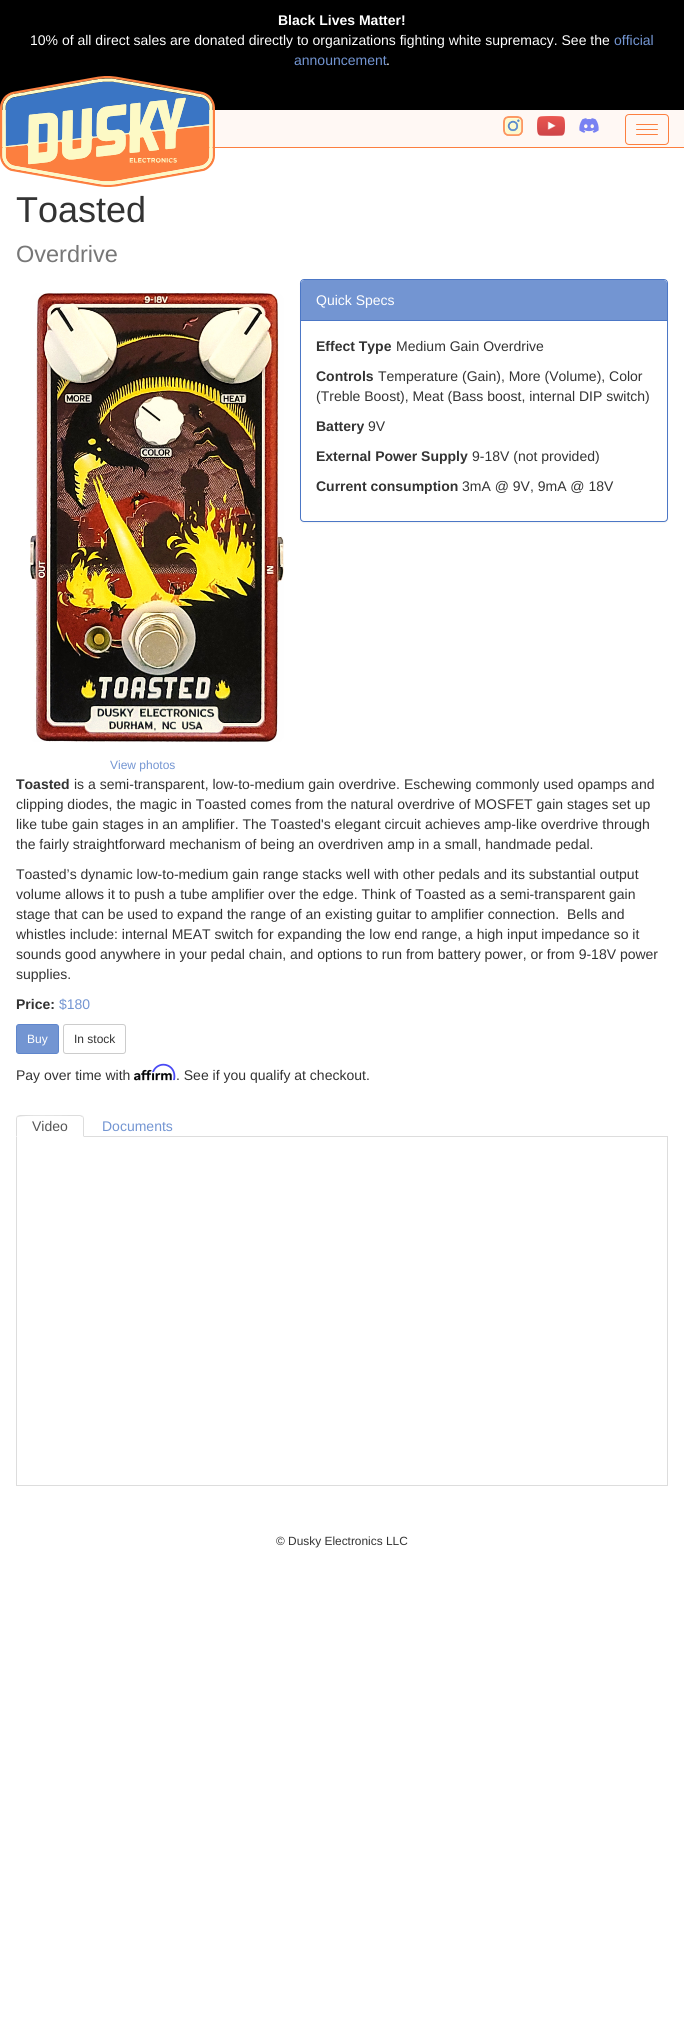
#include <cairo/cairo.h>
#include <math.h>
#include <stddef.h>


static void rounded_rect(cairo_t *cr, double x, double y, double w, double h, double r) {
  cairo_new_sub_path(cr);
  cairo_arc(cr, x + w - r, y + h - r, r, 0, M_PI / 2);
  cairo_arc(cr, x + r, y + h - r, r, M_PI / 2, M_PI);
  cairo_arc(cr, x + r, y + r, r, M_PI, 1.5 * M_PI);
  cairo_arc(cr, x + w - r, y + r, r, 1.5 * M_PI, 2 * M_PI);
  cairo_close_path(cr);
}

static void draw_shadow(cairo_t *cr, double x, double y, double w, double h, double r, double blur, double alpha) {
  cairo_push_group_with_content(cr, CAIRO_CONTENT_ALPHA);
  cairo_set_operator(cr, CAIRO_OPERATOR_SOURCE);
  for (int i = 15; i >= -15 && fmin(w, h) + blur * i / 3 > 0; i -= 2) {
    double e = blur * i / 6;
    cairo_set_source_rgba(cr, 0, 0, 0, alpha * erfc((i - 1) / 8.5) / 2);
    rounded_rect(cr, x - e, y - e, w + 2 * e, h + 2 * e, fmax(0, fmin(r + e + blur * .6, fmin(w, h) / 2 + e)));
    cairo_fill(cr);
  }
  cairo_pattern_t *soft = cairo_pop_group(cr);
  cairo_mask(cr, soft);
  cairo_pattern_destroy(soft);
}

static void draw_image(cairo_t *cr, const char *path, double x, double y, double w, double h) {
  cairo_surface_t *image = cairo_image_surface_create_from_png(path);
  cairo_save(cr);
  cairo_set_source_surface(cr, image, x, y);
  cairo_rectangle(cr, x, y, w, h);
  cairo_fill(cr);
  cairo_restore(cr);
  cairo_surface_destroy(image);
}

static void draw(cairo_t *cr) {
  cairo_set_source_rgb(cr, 1, 1, 1);
  cairo_paint(cr);
  cairo_set_source_rgb(cr, 0, 0, 0);
  cairo_rectangle(cr, 0, 0, 684, 110);
  cairo_fill(cr);
  cairo_set_source_rgb(cr, 252 / 255.0, 127 / 255.0, 63 / 255.0);
  cairo_rectangle(cr, 0, 147, 684, 1);
  cairo_fill(cr);
  cairo_set_source_rgb(cr, 1, 248 / 255.0, 244 / 255.0);
  cairo_rectangle(cr, 2, 110, 682, 37);
  cairo_fill(cr);
  draw_image(cr, "images/1.png", 0, 76, 215, 111);
  rounded_rect(cr, 625.5, 114.5, 43, 30, 3.5);
  cairo_set_source_rgb(cr, 252 / 255.0, 127 / 255.0, 63 / 255.0);
  cairo_set_line_width(cr, 1);
  cairo_stroke(cr);
  rounded_rect(cr, 636, 124, 22, 1, 0.5);
  cairo_fill(cr);
  rounded_rect(cr, 636, 129, 22, 1, 0.5);
  cairo_fill(cr);
  rounded_rect(cr, 636, 134, 22, 1, 0.5);
  cairo_fill(cr);
  draw_image(cr, "images/2.png", 503, 116, 20, 20);
  draw_image(cr, "images/3.png", 537, 116, 28, 20);
  draw_image(cr, "images/4.png", 579, 118, 20, 15);
  cairo_set_source_rgb(cr, 0, 0, 0);
  draw_shadow(cr, 300, 280, 368, 243, 4, 0.5, 0.05);
  cairo_set_source_rgb(cr, 1, 1, 1);
  rounded_rect(cr, 300.5, 279.5, 367, 242, 3.5);
  cairo_fill_preserve(cr);
  cairo_set_source_rgb(cr, 76 / 255.0, 119 / 255.0, 198 / 255.0);
  cairo_stroke(cr);
  cairo_set_source_rgb(cr, 115 / 255.0, 149 / 255.0, 210 / 255.0);
  cairo_new_path(cr);
  cairo_move_to(cr, 304, 280);
  cairo_line_to(cr, 664, 280);
  cairo_curve_to(cr, 665.5, 280, 667, 281.5, 667, 283);
  cairo_line_to(cr, 667, 321);
  cairo_line_to(cr, 301, 321);
  cairo_line_to(cr, 301, 283);
  cairo_curve_to(cr, 301, 281.5, 302.5, 280, 304, 280);
  cairo_close_path(cr);
  cairo_fill(cr);
  cairo_set_source_rgb(cr, 76 / 255.0, 119 / 255.0, 198 / 255.0);
  cairo_rectangle(cr, 301, 320, 366, 1);
  cairo_fill(cr);
  draw_image(cr, "images/5.png", 30, 293, 254, 449);
  cairo_set_source_rgb(cr, 115 / 255.0, 149 / 255.0, 210 / 255.0);
  rounded_rect(cr, 16.5, 1024.5, 42, 29, 2.5);
  cairo_fill_preserve(cr);
  cairo_set_source_rgb(cr, 95 / 255.0, 134 / 255.0, 204 / 255.0);
  cairo_stroke(cr);
  rounded_rect(cr, 63.5, 1024.5, 62, 29, 2.5);
  cairo_set_source_rgb(cr, 204 / 255.0, 204 / 255.0, 204 / 255.0);
  cairo_stroke(cr);
  draw_image(cr, "images/7.png", 134, 1069, 38, 12);
  draw_image(cr, "images/6.png", 152, 1063, 24, 18);
  cairo_set_source_rgb(cr, 221 / 255.0, 221 / 255.0, 221 / 255.0);
  cairo_rectangle(cr, 84, 1136, 584, 1);
  cairo_fill(cr);
  cairo_new_path(cr);
  cairo_move_to(cr, 20, 1115);
  cairo_line_to(cr, 17, 1116);
  cairo_line_to(cr, 18, 1117);
  cairo_curve_to(cr, 20, 1115, 64, 1116, 70, 1116);
  cairo_line_to(cr, 80, 1116);
  cairo_line_to(cr, 82, 1117);
  cairo_line_to(cr, 83, 1116);
  cairo_line_to(cr, 80, 1115);
  cairo_close_path(cr);
  cairo_fill(cr);
  cairo_new_path(cr);
  cairo_move_to(cr, 84, 1137);
  cairo_line_to(cr, 84, 1119);
  cairo_curve_to(cr, 84, 1118, 83.5, 1117, 83, 1116);
  cairo_line_to(cr, 82, 1117);
  cairo_curve_to(cr, 83, 1117, 83, 1118, 83, 1119);
  cairo_line_to(cr, 83, 1136);
  cairo_close_path(cr);
  cairo_fill(cr);
  cairo_new_path(cr);
  cairo_move_to(cr, 16, 1137);
  cairo_line_to(cr, 17, 1136);
  cairo_line_to(cr, 17, 1119);
  cairo_curve_to(cr, 17, 1118, 17, 1117, 18, 1117);
  cairo_line_to(cr, 17, 1116);
  cairo_curve_to(cr, 16.5, 1117, 16, 1118, 16, 1119);
  cairo_close_path(cr);
  cairo_fill(cr);
  cairo_rectangle(cr, 667, 1137, 1, 349);
  cairo_fill(cr);
  cairo_rectangle(cr, 16, 1485, 652, 1);
  cairo_fill(cr);
  cairo_rectangle(cr, 16, 1137, 1, 349);
  cairo_fill(cr);
  cairo_select_font_face(cr, "Liberation Sans", CAIRO_FONT_SLANT_NORMAL, CAIRO_FONT_WEIGHT_BOLD);
  cairo_set_font_size(cr, 14);
  cairo_set_source_rgb(cr, 1, 1, 1);
  cairo_move_to(cr, 278, 25);
  cairo_show_text(cr, "Black Lives Matter!");
  cairo_select_font_face(cr, "Liberation Sans", CAIRO_FONT_SLANT_NORMAL, CAIRO_FONT_WEIGHT_NORMAL);
  cairo_move_to(cr, 30, 45);
  cairo_show_text(cr, "10% of all direct sales are donated directly to organizations fighting white supremacy. See the");
  cairo_set_source_rgb(cr, 115 / 255.0, 149 / 255.0, 210 / 255.0);
  cairo_move_to(cr, 614, 45);
  cairo_show_text(cr, "official");
  cairo_move_to(cr, 294, 65);
  cairo_show_text(cr, "announcement");
  cairo_set_source_rgb(cr, 1, 1, 1);
  cairo_move_to(cr, 386, 65);
  cairo_show_text(cr, ".");
  cairo_set_font_size(cr, 36);
  cairo_set_source_rgb(cr, 51 / 255.0, 51 / 255.0, 51 / 255.0);
  cairo_move_to(cr, 16, 222);
  cairo_show_text(cr, "Toasted");
  cairo_set_font_size(cr, 23.5);
  cairo_set_source_rgb(cr, 119 / 255.0, 119 / 255.0, 119 / 255.0);
  cairo_move_to(cr, 16, 262);
  cairo_show_text(cr, "Overdrive");
  cairo_set_font_size(cr, 14);
  cairo_set_source_rgb(cr, 1, 1, 1);
  cairo_move_to(cr, 316, 305);
  cairo_show_text(cr, "Quick Specs");
  cairo_select_font_face(cr, "Liberation Sans", CAIRO_FONT_SLANT_NORMAL, CAIRO_FONT_WEIGHT_BOLD);
  cairo_set_source_rgb(cr, 51 / 255.0, 51 / 255.0, 51 / 255.0);
  cairo_move_to(cr, 316, 351);
  cairo_show_text(cr, "Effect Type");
  cairo_select_font_face(cr, "Liberation Sans", CAIRO_FONT_SLANT_NORMAL, CAIRO_FONT_WEIGHT_NORMAL);
  cairo_move_to(cr, 396, 351);
  cairo_show_text(cr, "Medium Gain Overdrive");
  cairo_select_font_face(cr, "Liberation Sans", CAIRO_FONT_SLANT_NORMAL, CAIRO_FONT_WEIGHT_BOLD);
  cairo_move_to(cr, 316, 381);
  cairo_show_text(cr, "Controls");
  cairo_select_font_face(cr, "Liberation Sans", CAIRO_FONT_SLANT_NORMAL, CAIRO_FONT_WEIGHT_NORMAL);
  cairo_move_to(cr, 378, 381);
  cairo_show_text(cr, "Temperature (Gain), More (Volume), Color");
  cairo_move_to(cr, 316, 401);
  cairo_show_text(cr, "(Treble Boost), Meat (Bass boost, internal DIP switch)");
  cairo_select_font_face(cr, "Liberation Sans", CAIRO_FONT_SLANT_NORMAL, CAIRO_FONT_WEIGHT_BOLD);
  cairo_move_to(cr, 316, 431);
  cairo_show_text(cr, "Battery");
  cairo_select_font_face(cr, "Liberation Sans", CAIRO_FONT_SLANT_NORMAL, CAIRO_FONT_WEIGHT_NORMAL);
  cairo_move_to(cr, 368, 431);
  cairo_show_text(cr, "9V");
  cairo_select_font_face(cr, "Liberation Sans", CAIRO_FONT_SLANT_NORMAL, CAIRO_FONT_WEIGHT_BOLD);
  cairo_move_to(cr, 316, 461);
  cairo_show_text(cr, "External Power Supply");
  cairo_select_font_face(cr, "Liberation Sans", CAIRO_FONT_SLANT_NORMAL, CAIRO_FONT_WEIGHT_NORMAL);
  cairo_move_to(cr, 472, 461);
  cairo_show_text(cr, "9-18V (not provided)");
  cairo_select_font_face(cr, "Liberation Sans", CAIRO_FONT_SLANT_NORMAL, CAIRO_FONT_WEIGHT_BOLD);
  cairo_move_to(cr, 316, 491);
  cairo_show_text(cr, "Current consumption");
  cairo_select_font_face(cr, "Liberation Sans", CAIRO_FONT_SLANT_NORMAL, CAIRO_FONT_WEIGHT_NORMAL);
  cairo_move_to(cr, 462, 491);
  cairo_show_text(cr, "3mA @ 9V, 9mA @ 18V");
  cairo_set_font_size(cr, 12);
  cairo_set_source_rgb(cr, 115 / 255.0, 149 / 255.0, 210 / 255.0);
  cairo_move_to(cr, 110, 769);
  cairo_show_text(cr, "View photos");
  cairo_select_font_face(cr, "Liberation Sans", CAIRO_FONT_SLANT_NORMAL, CAIRO_FONT_WEIGHT_BOLD);
  cairo_set_font_size(cr, 14);
  cairo_set_source_rgb(cr, 51 / 255.0, 51 / 255.0, 51 / 255.0);
  cairo_move_to(cr, 16, 789);
  cairo_show_text(cr, "Toasted");
  cairo_select_font_face(cr, "Liberation Sans", CAIRO_FONT_SLANT_NORMAL, CAIRO_FONT_WEIGHT_NORMAL);
  cairo_move_to(cr, 74, 789);
  cairo_show_text(cr, "is a semi-transparent, low-to-medium gain overdrive. Eschewing commonly used opamps and");
  cairo_move_to(cr, 16, 809);
  cairo_show_text(cr, "clipping diodes, the magic in Toasted comes from the natural overdrive of MOSFET gain stages set up");
  cairo_move_to(cr, 16, 829);
  cairo_show_text(cr, "like tube gain stages in an amplifier. The Toasted's elegant circuit achieves amp-like overdrive through");
  cairo_move_to(cr, 16, 849);
  cairo_show_text(cr, "the fairly straightforward mechanism of being an overdriven amp in a small, handmade pedal.");
  cairo_move_to(cr, 16, 879);
  cairo_show_text(cr, "Toasted’s dynamic low-to-medium gain range stacks well with other pedals and its substantial output");
  cairo_move_to(cr, 16, 899);
  cairo_show_text(cr, "volume allows it to push a tube amplifier over the edge. Think of Toasted as a semi-transparent gain");
  cairo_move_to(cr, 16, 919);
  cairo_show_text(cr, "stage that can be used to expand the range of an existing guitar to amplifier connection.  Bells and");
  cairo_move_to(cr, 16, 939);
  cairo_show_text(cr, "whistles include: internal MEAT switch for expanding the low end range, a high input impedance so it");
  cairo_move_to(cr, 16, 959);
  cairo_show_text(cr, "sounds good anywhere in your pedal chain, and options to run from battery power, or from 9-18V power");
  cairo_move_to(cr, 16, 979);
  cairo_show_text(cr, "supplies.");
  cairo_select_font_face(cr, "Liberation Sans", CAIRO_FONT_SLANT_NORMAL, CAIRO_FONT_WEIGHT_BOLD);
  cairo_move_to(cr, 16, 1009);
  cairo_show_text(cr, "Price:");
  cairo_select_font_face(cr, "Liberation Sans", CAIRO_FONT_SLANT_NORMAL, CAIRO_FONT_WEIGHT_NORMAL);
  cairo_set_source_rgb(cr, 115 / 255.0, 149 / 255.0, 210 / 255.0);
  cairo_move_to(cr, 59, 1009);
  cairo_show_text(cr, "$180");
  cairo_set_font_size(cr, 12);
  cairo_set_source_rgb(cr, 1, 1, 1);
  cairo_move_to(cr, 27, 1043);
  cairo_show_text(cr, "Buy");
  cairo_set_source_rgb(cr, 51 / 255.0, 51 / 255.0, 51 / 255.0);
  cairo_move_to(cr, 74, 1043);
  cairo_show_text(cr, "In stock");
  cairo_set_font_size(cr, 14);
  cairo_move_to(cr, 16, 1080);
  cairo_show_text(cr, "Pay over time with");
  cairo_move_to(cr, 176, 1080);
  cairo_show_text(cr, ". See if you qualify at checkout.");
  cairo_set_source_rgb(cr, 85 / 255.0, 85 / 255.0, 85 / 255.0);
  cairo_move_to(cr, 32, 1131);
  cairo_show_text(cr, "Video");
  cairo_set_source_rgb(cr, 115 / 255.0, 149 / 255.0, 210 / 255.0);
  cairo_move_to(cr, 102, 1131);
  cairo_show_text(cr, "Documents");
  cairo_set_font_size(cr, 11.9);
  cairo_set_source_rgb(cr, 51 / 255.0, 51 / 255.0, 51 / 255.0);
  cairo_move_to(cr, 276, 1545);
  cairo_show_text(cr, "© Dusky Electronics LLC");
}

int main(void) {
  cairo_surface_t *surface = cairo_image_surface_create(CAIRO_FORMAT_RGB24, 684, 2019);
  cairo_t *cr = cairo_create(surface);
  cairo_font_options_t *options = cairo_font_options_create();
  cairo_font_options_set_hint_metrics(options, CAIRO_HINT_METRICS_OFF);
  cairo_font_options_set_hint_style(options, CAIRO_HINT_STYLE_NONE);
  cairo_set_font_options(cr, options);
  cairo_set_miter_limit(cr, 4);
  draw(cr);
  cairo_surface_write_to_png(surface, "out.png");
  cairo_font_options_destroy(options);
  cairo_destroy(cr);
  cairo_surface_destroy(surface);
  return 0;
}
